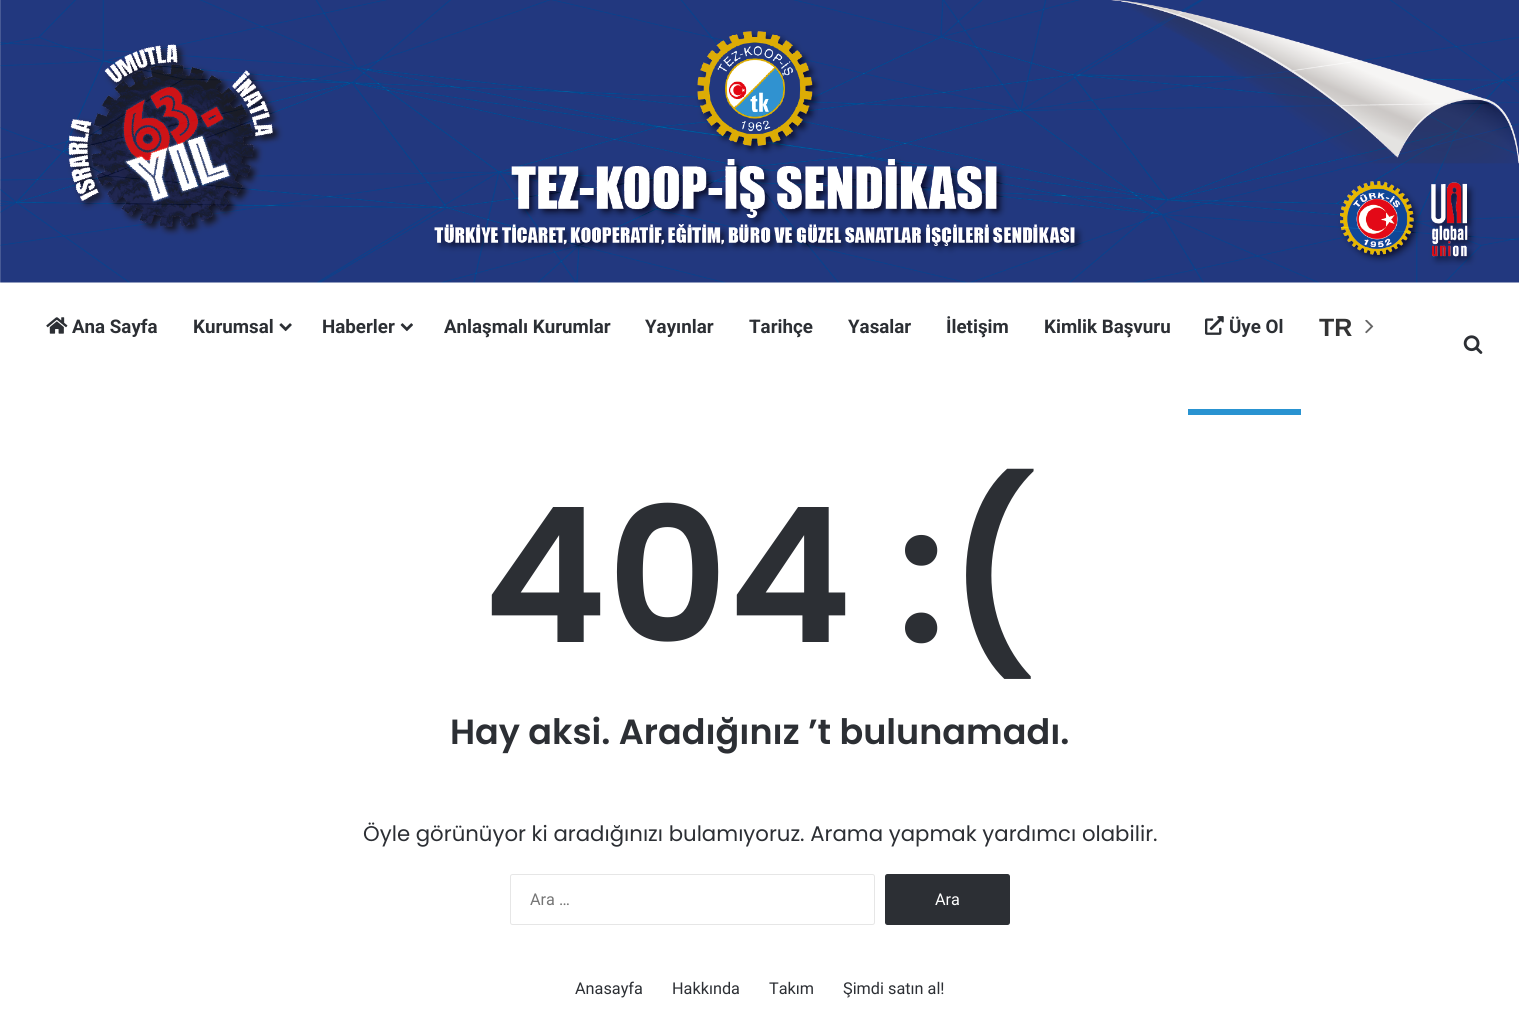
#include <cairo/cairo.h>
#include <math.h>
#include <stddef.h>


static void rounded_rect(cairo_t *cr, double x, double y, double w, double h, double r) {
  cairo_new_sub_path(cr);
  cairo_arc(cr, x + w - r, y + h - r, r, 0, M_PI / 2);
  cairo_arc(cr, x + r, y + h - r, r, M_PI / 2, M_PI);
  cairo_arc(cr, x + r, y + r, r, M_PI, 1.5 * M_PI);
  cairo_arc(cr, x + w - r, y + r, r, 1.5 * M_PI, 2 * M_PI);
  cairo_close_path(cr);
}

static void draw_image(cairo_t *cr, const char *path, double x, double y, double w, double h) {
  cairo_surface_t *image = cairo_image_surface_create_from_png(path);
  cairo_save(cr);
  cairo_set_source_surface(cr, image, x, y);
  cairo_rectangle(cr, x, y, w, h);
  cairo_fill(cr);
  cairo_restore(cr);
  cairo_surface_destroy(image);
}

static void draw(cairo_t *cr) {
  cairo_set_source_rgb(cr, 1, 1, 1);
  cairo_paint(cr);
  draw_image(cr, "images/1.png", 0, 0, 1519, 283);
  draw_image(cr, "images/2.png", 46, 317, 22, 17);
  draw_image(cr, "images/3.png", 279, 323, 13, 9);
  draw_image(cr, "images/4.png", 400, 323, 13, 9);
  cairo_set_source_rgb(cr, 41 / 255.0, 147 / 255.0, 209 / 255.0);
  cairo_rectangle(cr, 1188, 409, 113, 6);
  cairo_fill(cr);
  draw_image(cr, "images/5.png", 1205, 316, 19, 19);
  draw_image(cr, "images/6.png", 1365, 319, 9, 15);
  draw_image(cr, "images/7.png", 1463, 335, 20, 19);
  rounded_rect(cr, 510.5, 874.5, 364, 50, 2);
  cairo_set_source_rgb(cr, 230 / 255.0, 230 / 255.0, 230 / 255.0);
  cairo_set_line_width(cr, 1);
  cairo_stroke(cr);
  cairo_set_source_rgb(cr, 44 / 255.0, 47 / 255.0, 52 / 255.0);
  rounded_rect(cr, 885, 874, 125, 51, 2.5);
  cairo_fill(cr);
  cairo_select_font_face(cr, "Roboto", CAIRO_FONT_SLANT_NORMAL, CAIRO_FONT_WEIGHT_BOLD);
  cairo_set_font_size(cr, 18.75);
  cairo_move_to(cr, 72, 333);
  cairo_show_text(cr, "Ana Sayfa");
  cairo_move_to(cr, 193, 333);
  cairo_show_text(cr, "Kurumsal");
  cairo_move_to(cr, 322, 333);
  cairo_show_text(cr, "Haberler");
  cairo_move_to(cr, 444, 333);
  cairo_show_text(cr, "Anlaşmalı Kurumlar");
  cairo_move_to(cr, 645, 333);
  cairo_show_text(cr, "Yayınlar");
  cairo_move_to(cr, 749, 333);
  cairo_show_text(cr, "Tarihçe");
  cairo_move_to(cr, 848, 333);
  cairo_show_text(cr, "Yasalar");
  cairo_move_to(cr, 946, 333);
  cairo_show_text(cr, "İletişim");
  cairo_move_to(cr, 1044, 333);
  cairo_show_text(cr, "Kimlik Başvuru");
  cairo_move_to(cr, 1229, 333);
  cairo_show_text(cr, "Üye Ol");
  cairo_select_font_face(cr, "Liberation Sans", CAIRO_FONT_SLANT_NORMAL, CAIRO_FONT_WEIGHT_BOLD);
  cairo_set_font_size(cr, 25);
  cairo_set_source_rgb(cr, 51 / 255.0, 51 / 255.0, 51 / 255.0);
  cairo_move_to(cr, 1319, 336);
  cairo_show_text(cr, "TR");
  cairo_select_font_face(cr, "Poppins SemiBold", CAIRO_FONT_SLANT_NORMAL, CAIRO_FONT_WEIGHT_NORMAL);
  cairo_set_font_size(cr, 187.5);
  cairo_set_source_rgb(cr, 44 / 255.0, 47 / 255.0, 52 / 255.0);
  cairo_move_to(cr, 483, 642);
  cairo_show_text(cr, "404 :(");
  cairo_set_font_size(cr, 35);
  cairo_move_to(cr, 450, 744);
  cairo_show_text(cr, "Hay aksi. Aradığınız ’t bulunamadı.");
  cairo_select_font_face(cr, "Poppins", CAIRO_FONT_SLANT_NORMAL, CAIRO_FONT_WEIGHT_NORMAL);
  cairo_set_font_size(cr, 21.25);
  cairo_move_to(cr, 363, 841);
  cairo_show_text(cr, "Öyle görünüyor ki aradığınızı bulamıyoruz. Arama yapmak yardımcı olabilir.");
  cairo_select_font_face(cr, "Roboto", CAIRO_FONT_SLANT_NORMAL, CAIRO_FONT_WEIGHT_NORMAL);
  cairo_set_font_size(cr, 16.25);
  cairo_set_source_rgb(cr, 117 / 255.0, 117 / 255.0, 117 / 255.0);
  cairo_move_to(cr, 530, 905);
  cairo_show_text(cr, "Ara …");
  cairo_set_source_rgb(cr, 1, 1, 1);
  cairo_move_to(cr, 935, 905);
  cairo_show_text(cr, "Ara");
  cairo_set_source_rgb(cr, 44 / 255.0, 47 / 255.0, 52 / 255.0);
  cairo_move_to(cr, 575, 994);
  cairo_show_text(cr, "Anasayfa");
  cairo_move_to(cr, 672, 994);
  cairo_show_text(cr, "Hakkında");
  cairo_move_to(cr, 769, 994);
  cairo_show_text(cr, "Takım");
  cairo_move_to(cr, 843, 994);
  cairo_show_text(cr, "Şimdi satın al!");
}

int main(void) {
  cairo_surface_t *surface = cairo_image_surface_create(CAIRO_FORMAT_RGB24, 1519, 1029);
  cairo_t *cr = cairo_create(surface);
  cairo_font_options_t *options = cairo_font_options_create();
  cairo_font_options_set_hint_metrics(options, CAIRO_HINT_METRICS_OFF);
  cairo_font_options_set_hint_style(options, CAIRO_HINT_STYLE_NONE);
  cairo_set_font_options(cr, options);
  cairo_set_miter_limit(cr, 4);
  draw(cr);
  cairo_surface_write_to_png(surface, "out.png");
  cairo_font_options_destroy(options);
  cairo_destroy(cr);
  cairo_surface_destroy(surface);
  return 0;
}
